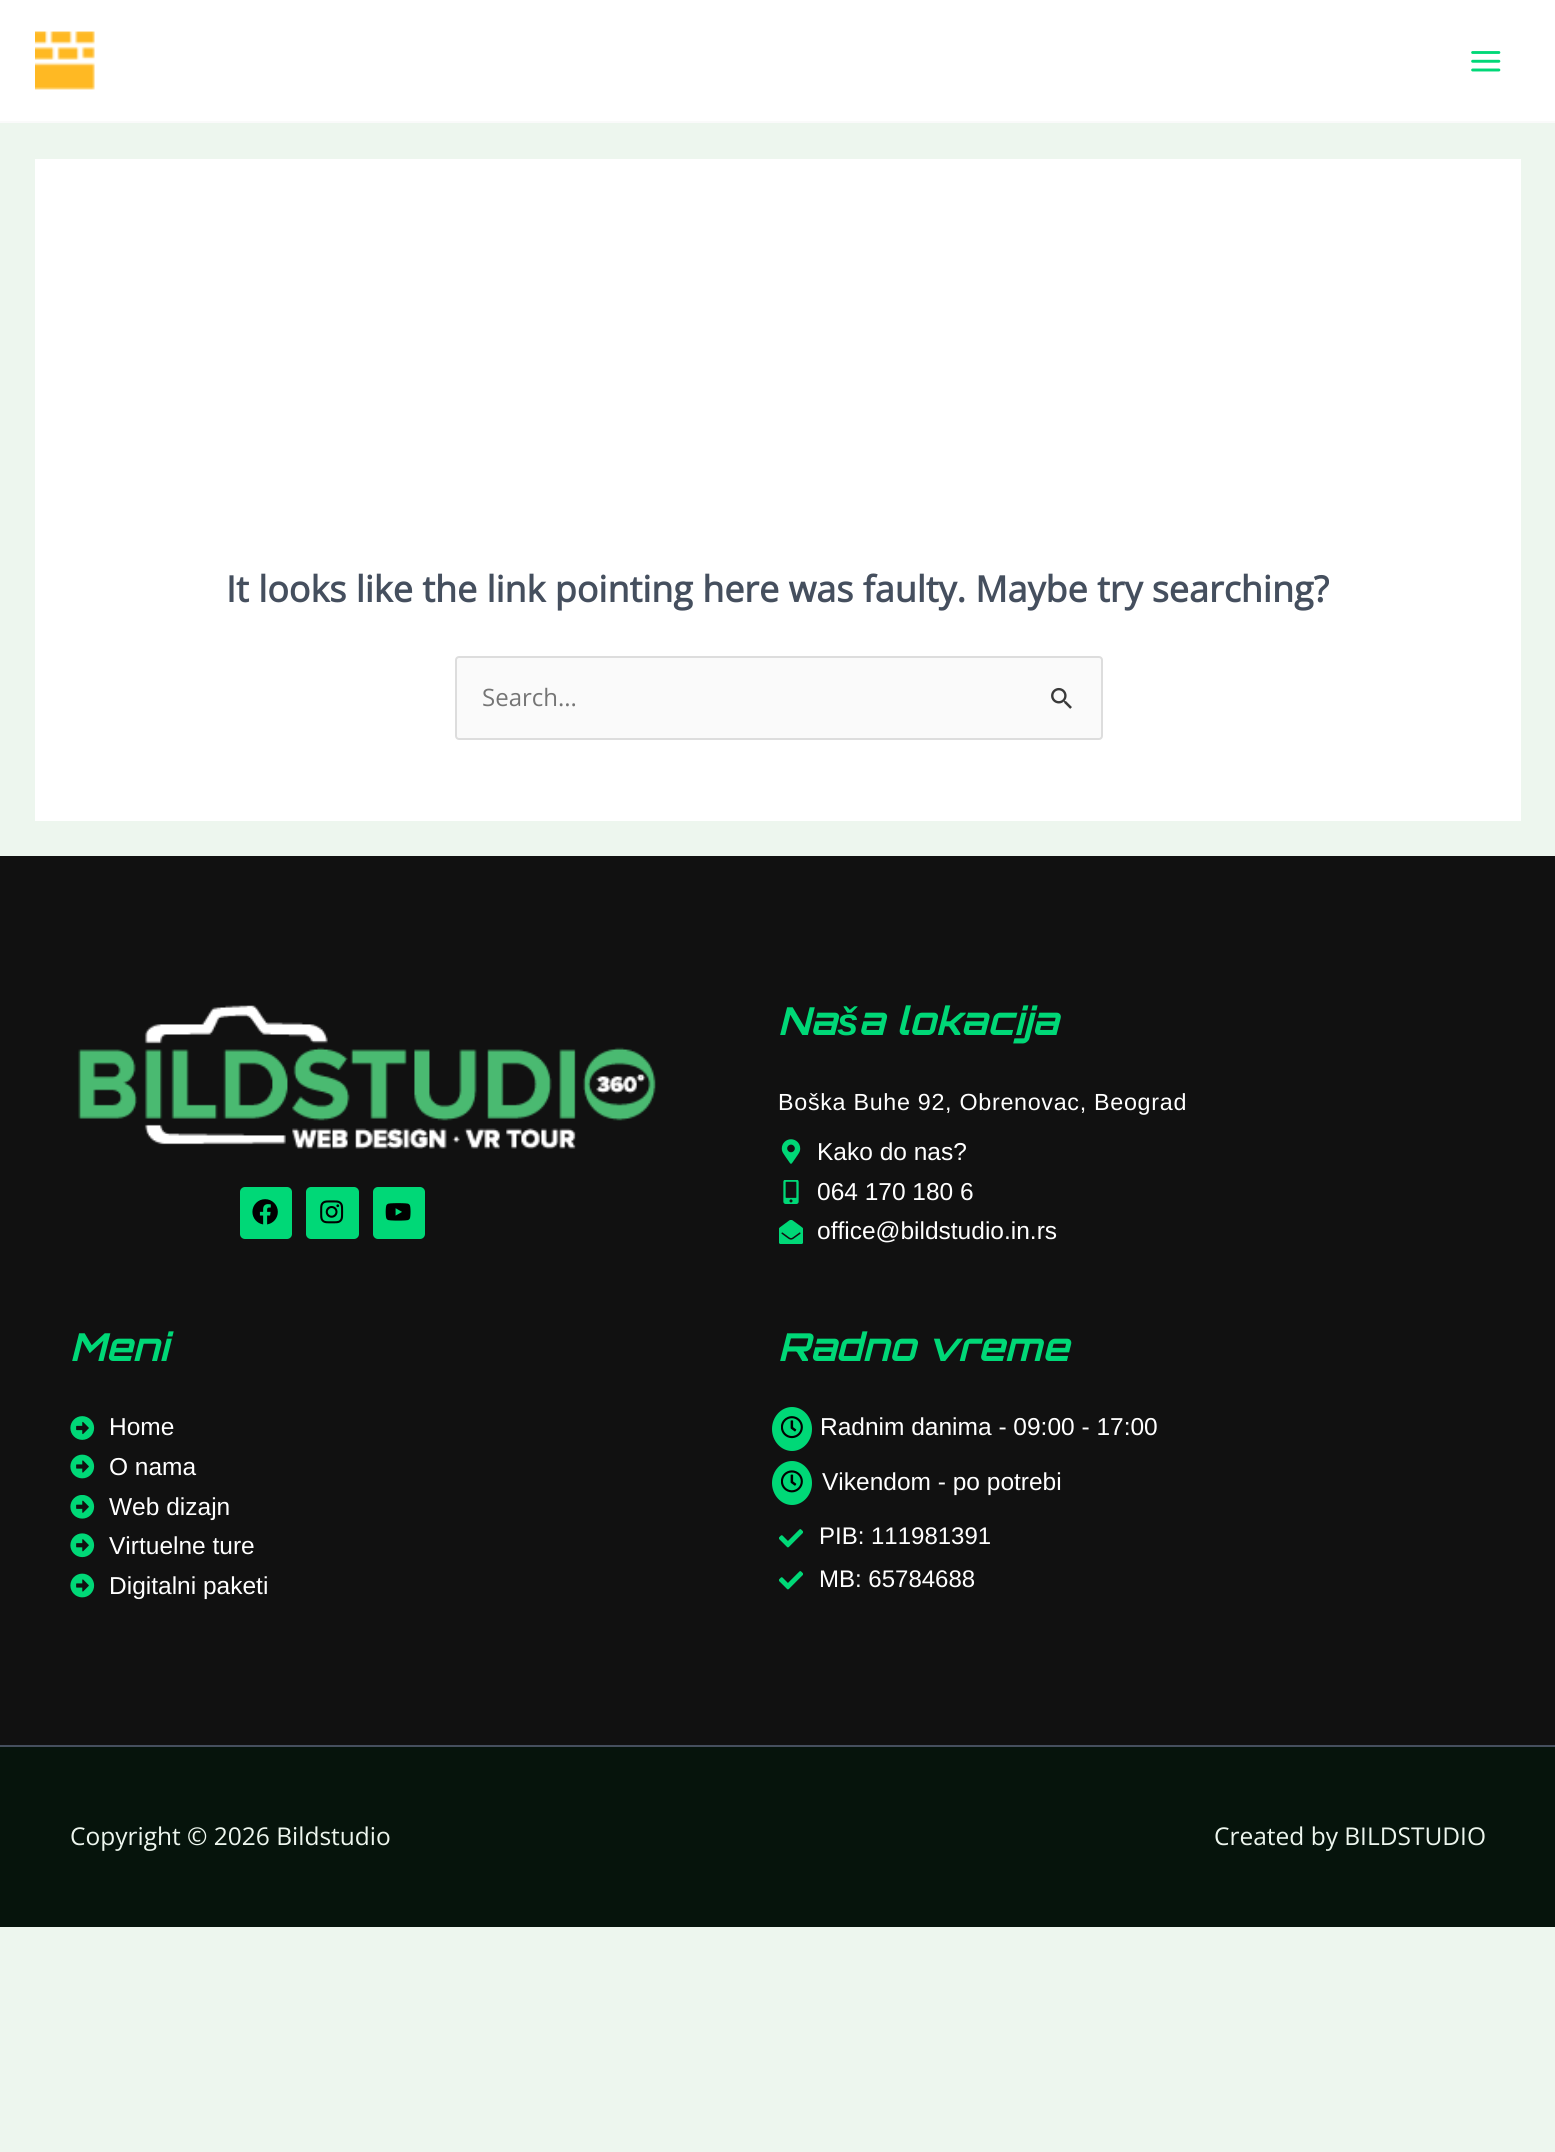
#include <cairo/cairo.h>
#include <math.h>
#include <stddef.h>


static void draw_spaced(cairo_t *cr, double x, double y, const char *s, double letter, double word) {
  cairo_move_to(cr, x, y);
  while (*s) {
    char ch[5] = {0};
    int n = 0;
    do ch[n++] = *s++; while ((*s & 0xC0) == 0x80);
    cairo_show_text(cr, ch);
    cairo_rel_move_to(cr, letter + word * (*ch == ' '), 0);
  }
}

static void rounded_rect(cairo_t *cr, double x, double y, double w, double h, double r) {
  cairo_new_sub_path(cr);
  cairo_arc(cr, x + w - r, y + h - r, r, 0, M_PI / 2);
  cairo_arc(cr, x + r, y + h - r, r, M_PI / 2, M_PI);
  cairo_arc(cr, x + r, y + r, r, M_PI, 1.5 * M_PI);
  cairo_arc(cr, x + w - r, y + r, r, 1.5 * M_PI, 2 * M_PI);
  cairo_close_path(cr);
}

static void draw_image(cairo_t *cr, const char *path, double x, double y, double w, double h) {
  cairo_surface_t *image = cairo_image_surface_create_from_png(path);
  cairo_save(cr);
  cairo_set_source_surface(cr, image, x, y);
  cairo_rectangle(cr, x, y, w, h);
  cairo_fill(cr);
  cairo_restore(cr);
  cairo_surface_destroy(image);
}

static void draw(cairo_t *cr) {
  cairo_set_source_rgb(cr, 237 / 255.0, 246 / 255.0, 238 / 255.0);
  cairo_paint(cr);
  cairo_set_source_rgb(cr, 1, 1, 1);
  cairo_rectangle(cr, 0, 0, 1555, 121);
  cairo_fill(cr);
  cairo_set_source_rgb(cr, 250 / 255.0, 250 / 255.0, 250 / 255.0);
  cairo_rectangle(cr, 0, 121, 1555, 2);
  cairo_fill(cr);
  draw_image(cr, "images/1.png", 35, 31, 60, 59);
  draw_image(cr, "images/2.png", 1471, 51, 30, 21);
  cairo_set_source_rgb(cr, 1, 1, 1);
  cairo_rectangle(cr, 35, 159, 1486, 662);
  cairo_fill(cr);
  cairo_set_source_rgb(cr, 250 / 255.0, 250 / 255.0, 250 / 255.0);
  rounded_rect(cr, 456, 657, 646, 82, 3);
  cairo_fill_preserve(cr);
  cairo_set_source_rgb(cr, 221 / 255.0, 221 / 255.0, 221 / 255.0);
  cairo_stroke(cr);
  draw_image(cr, "images/3.png", 1051, 687, 21, 22);
  cairo_set_source_rgb(cr, 17 / 255.0, 17 / 255.0, 17 / 255.0);
  cairo_rectangle(cr, 0, 856, 1555, 889);
  cairo_fill(cr);
  draw_image(cr, "images/4.png", 78, 1005, 578, 144);
  cairo_set_source_rgb(cr, 0, 216 / 255.0, 119 / 255.0);
  rounded_rect(cr, 240, 1187, 52, 52, 5);
  cairo_fill(cr);
  draw_image(cr, "images/5.png", 252, 1199, 26, 26);
  rounded_rect(cr, 306, 1187, 53, 52, 5);
  cairo_fill(cr);
  draw_image(cr, "images/6.png", 320, 1200, 24, 24);
  rounded_rect(cr, 373, 1187, 52, 52, 5);
  cairo_fill(cr);
  draw_image(cr, "images/7.png", 385, 1203, 26, 18);
  draw_image(cr, "images/8.png", 781, 1139, 20, 25);
  draw_image(cr, "images/9.png", 783, 1180, 16, 24);
  draw_image(cr, "images/10.png", 779, 1220, 24, 24);
  draw_image(cr, "images/11.png", 70, 1416, 25, 24);
  draw_image(cr, "images/12.png", 70, 1454, 25, 25);
  draw_image(cr, "images/13.png", 70, 1495, 25, 24);
  draw_image(cr, "images/14.png", 70, 1533, 25, 25);
  draw_image(cr, "images/12.png", 70, 1573, 25, 25);
  cairo_new_path(cr);
  cairo_move_to(cr, 792, 1407);
  cairo_curve_to(cr, 803, 1407, 812, 1417, 812, 1429);
  cairo_curve_to(cr, 812, 1441, 803, 1451, 792, 1451);
  cairo_curve_to(cr, 781, 1451, 772, 1441, 772, 1429);
  cairo_curve_to(cr, 772, 1417, 781, 1407, 792, 1407);
  cairo_close_path(cr);
  cairo_fill(cr);
  draw_image(cr, "images/15.png", 781, 1416, 22, 23);
  cairo_new_path(cr);
  cairo_move_to(cr, 792, 1461);
  cairo_curve_to(cr, 803, 1461, 812, 1471, 812, 1483);
  cairo_curve_to(cr, 812, 1495, 803, 1505, 792, 1505);
  cairo_curve_to(cr, 781, 1505, 772, 1495, 772, 1483);
  cairo_curve_to(cr, 772, 1471, 781, 1461, 792, 1461);
  cairo_close_path(cr);
  cairo_fill(cr);
  draw_image(cr, "images/16.png", 781, 1470, 22, 23);
  draw_image(cr, "images/17.png", 779, 1529, 24, 19);
  draw_image(cr, "images/17.png", 779, 1571, 24, 19);
  cairo_set_source_rgb(cr, 6 / 255.0, 20 / 255.0, 12 / 255.0);
  cairo_rectangle(cr, 0, 1747, 1555, 180);
  cairo_fill(cr);
  cairo_set_source_rgb(cr, 69 / 255.0, 79 / 255.0, 94 / 255.0);
  cairo_rectangle(cr, 0, 1745, 1555, 2);
  cairo_fill(cr);
  cairo_select_font_face(cr, "Open Sans", CAIRO_FONT_SLANT_NORMAL, CAIRO_FONT_WEIGHT_BOLD);
  cairo_set_font_size(cr, 35.9);
  cairo_move_to(cr, 226, 602);
  cairo_show_text(cr, "It looks like the link pointing here was faulty. Maybe try searching?");
  cairo_select_font_face(cr, "Open Sans", CAIRO_FONT_SLANT_NORMAL, CAIRO_FONT_WEIGHT_NORMAL);
  cairo_set_font_size(cr, 24);
  cairo_set_source_rgb(cr, 117 / 255.0, 117 / 255.0, 117 / 255.0);
  cairo_move_to(cr, 482, 706);
  cairo_show_text(cr, "Search...");
  cairo_select_font_face(cr, "Orbitron", CAIRO_FONT_SLANT_ITALIC, CAIRO_FONT_WEIGHT_BOLD);
  cairo_set_font_size(cr, 38.5);
  cairo_set_source_rgb(cr, 0, 216 / 255.0, 119 / 255.0);
  cairo_move_to(cr, 778, 1035);
  cairo_show_text(cr, "Na");
  cairo_select_font_face(cr, "Liberation Sans", CAIRO_FONT_SLANT_ITALIC, CAIRO_FONT_WEIGHT_BOLD);
  cairo_move_to(cr, 837, 1035);
  cairo_show_text(cr, "š");
  cairo_select_font_face(cr, "Orbitron", CAIRO_FONT_SLANT_ITALIC, CAIRO_FONT_WEIGHT_BOLD);
  cairo_move_to(cr, 858, 1035);
  cairo_show_text(cr, "a lokacija");
  cairo_select_font_face(cr, "Liberation Sans", CAIRO_FONT_SLANT_NORMAL, CAIRO_FONT_WEIGHT_NORMAL);
  cairo_set_font_size(cr, 23.3);
  cairo_set_source_rgb(cr, 1, 1, 1);
  draw_spaced(cr, 778, 1110, "Boška Buhe 92, Obrenovac, Beograd", 0.7, 0);
  cairo_set_font_size(cr, 24.5);
  cairo_move_to(cr, 817, 1160);
  cairo_show_text(cr, "Kako do nas?");
  cairo_move_to(cr, 817, 1200);
  cairo_show_text(cr, "064 170 180 6");
  cairo_move_to(cr, 817, 1239);
  cairo_show_text(cr, "office@bildstudio.in.rs");
  cairo_select_font_face(cr, "Orbitron", CAIRO_FONT_SLANT_ITALIC, CAIRO_FONT_WEIGHT_BOLD);
  cairo_set_font_size(cr, 38.5);
  cairo_set_source_rgb(cr, 0, 216 / 255.0, 119 / 255.0);
  cairo_move_to(cr, 70, 1361);
  cairo_show_text(cr, "Meni");
  cairo_select_font_face(cr, "Liberation Sans", CAIRO_FONT_SLANT_NORMAL, CAIRO_FONT_WEIGHT_NORMAL);
  cairo_set_font_size(cr, 24.5);
  cairo_set_source_rgb(cr, 1, 1, 1);
  cairo_move_to(cr, 109, 1435);
  cairo_show_text(cr, "Home");
  cairo_move_to(cr, 109, 1475);
  cairo_show_text(cr, "O nama");
  cairo_move_to(cr, 109, 1515);
  cairo_show_text(cr, "Web dizajn");
  cairo_move_to(cr, 109, 1554);
  cairo_show_text(cr, "Virtuelne ture");
  cairo_move_to(cr, 109, 1594);
  cairo_show_text(cr, "Digitalni paketi");
  cairo_select_font_face(cr, "Orbitron", CAIRO_FONT_SLANT_ITALIC, CAIRO_FONT_WEIGHT_BOLD);
  cairo_set_font_size(cr, 38.5);
  cairo_set_source_rgb(cr, 0, 216 / 255.0, 119 / 255.0);
  cairo_move_to(cr, 778, 1361);
  cairo_show_text(cr, "Radno vreme");
  cairo_select_font_face(cr, "Liberation Sans", CAIRO_FONT_SLANT_NORMAL, CAIRO_FONT_WEIGHT_NORMAL);
  cairo_set_font_size(cr, 24.5);
  cairo_set_source_rgb(cr, 1, 1, 1);
  cairo_move_to(cr, 820, 1435);
  cairo_show_text(cr, "Radnim danima - 09:00 - 17:00");
  cairo_move_to(cr, 822, 1490);
  cairo_show_text(cr, "Vikendom - po potrebi");
  cairo_set_font_size(cr, 24);
  cairo_move_to(cr, 819, 1544);
  cairo_show_text(cr, "PIB: 111981391");
  cairo_move_to(cr, 819, 1587);
  cairo_show_text(cr, "MB: 65784688");
  cairo_select_font_face(cr, "Open Sans", CAIRO_FONT_SLANT_NORMAL, CAIRO_FONT_WEIGHT_NORMAL);
  cairo_set_font_size(cr, 24.5);
  cairo_set_source_rgb(cr, 237 / 255.0, 246 / 255.0, 238 / 255.0);
  cairo_move_to(cr, 70, 1845);
  cairo_show_text(cr, "Copyright © 2026 Bildstudio");
  cairo_move_to(cr, 1214, 1845);
  cairo_show_text(cr, "Created by BILDSTUDIO");
}

int main(void) {
  cairo_surface_t *surface = cairo_image_surface_create(CAIRO_FORMAT_RGB24, 1555, 2152);
  cairo_t *cr = cairo_create(surface);
  cairo_font_options_t *options = cairo_font_options_create();
  cairo_font_options_set_hint_metrics(options, CAIRO_HINT_METRICS_OFF);
  cairo_font_options_set_hint_style(options, CAIRO_HINT_STYLE_NONE);
  cairo_set_font_options(cr, options);
  cairo_set_miter_limit(cr, 4);
  draw(cr);
  cairo_surface_write_to_png(surface, "out.png");
  cairo_font_options_destroy(options);
  cairo_destroy(cr);
  cairo_surface_destroy(surface);
  return 0;
}
